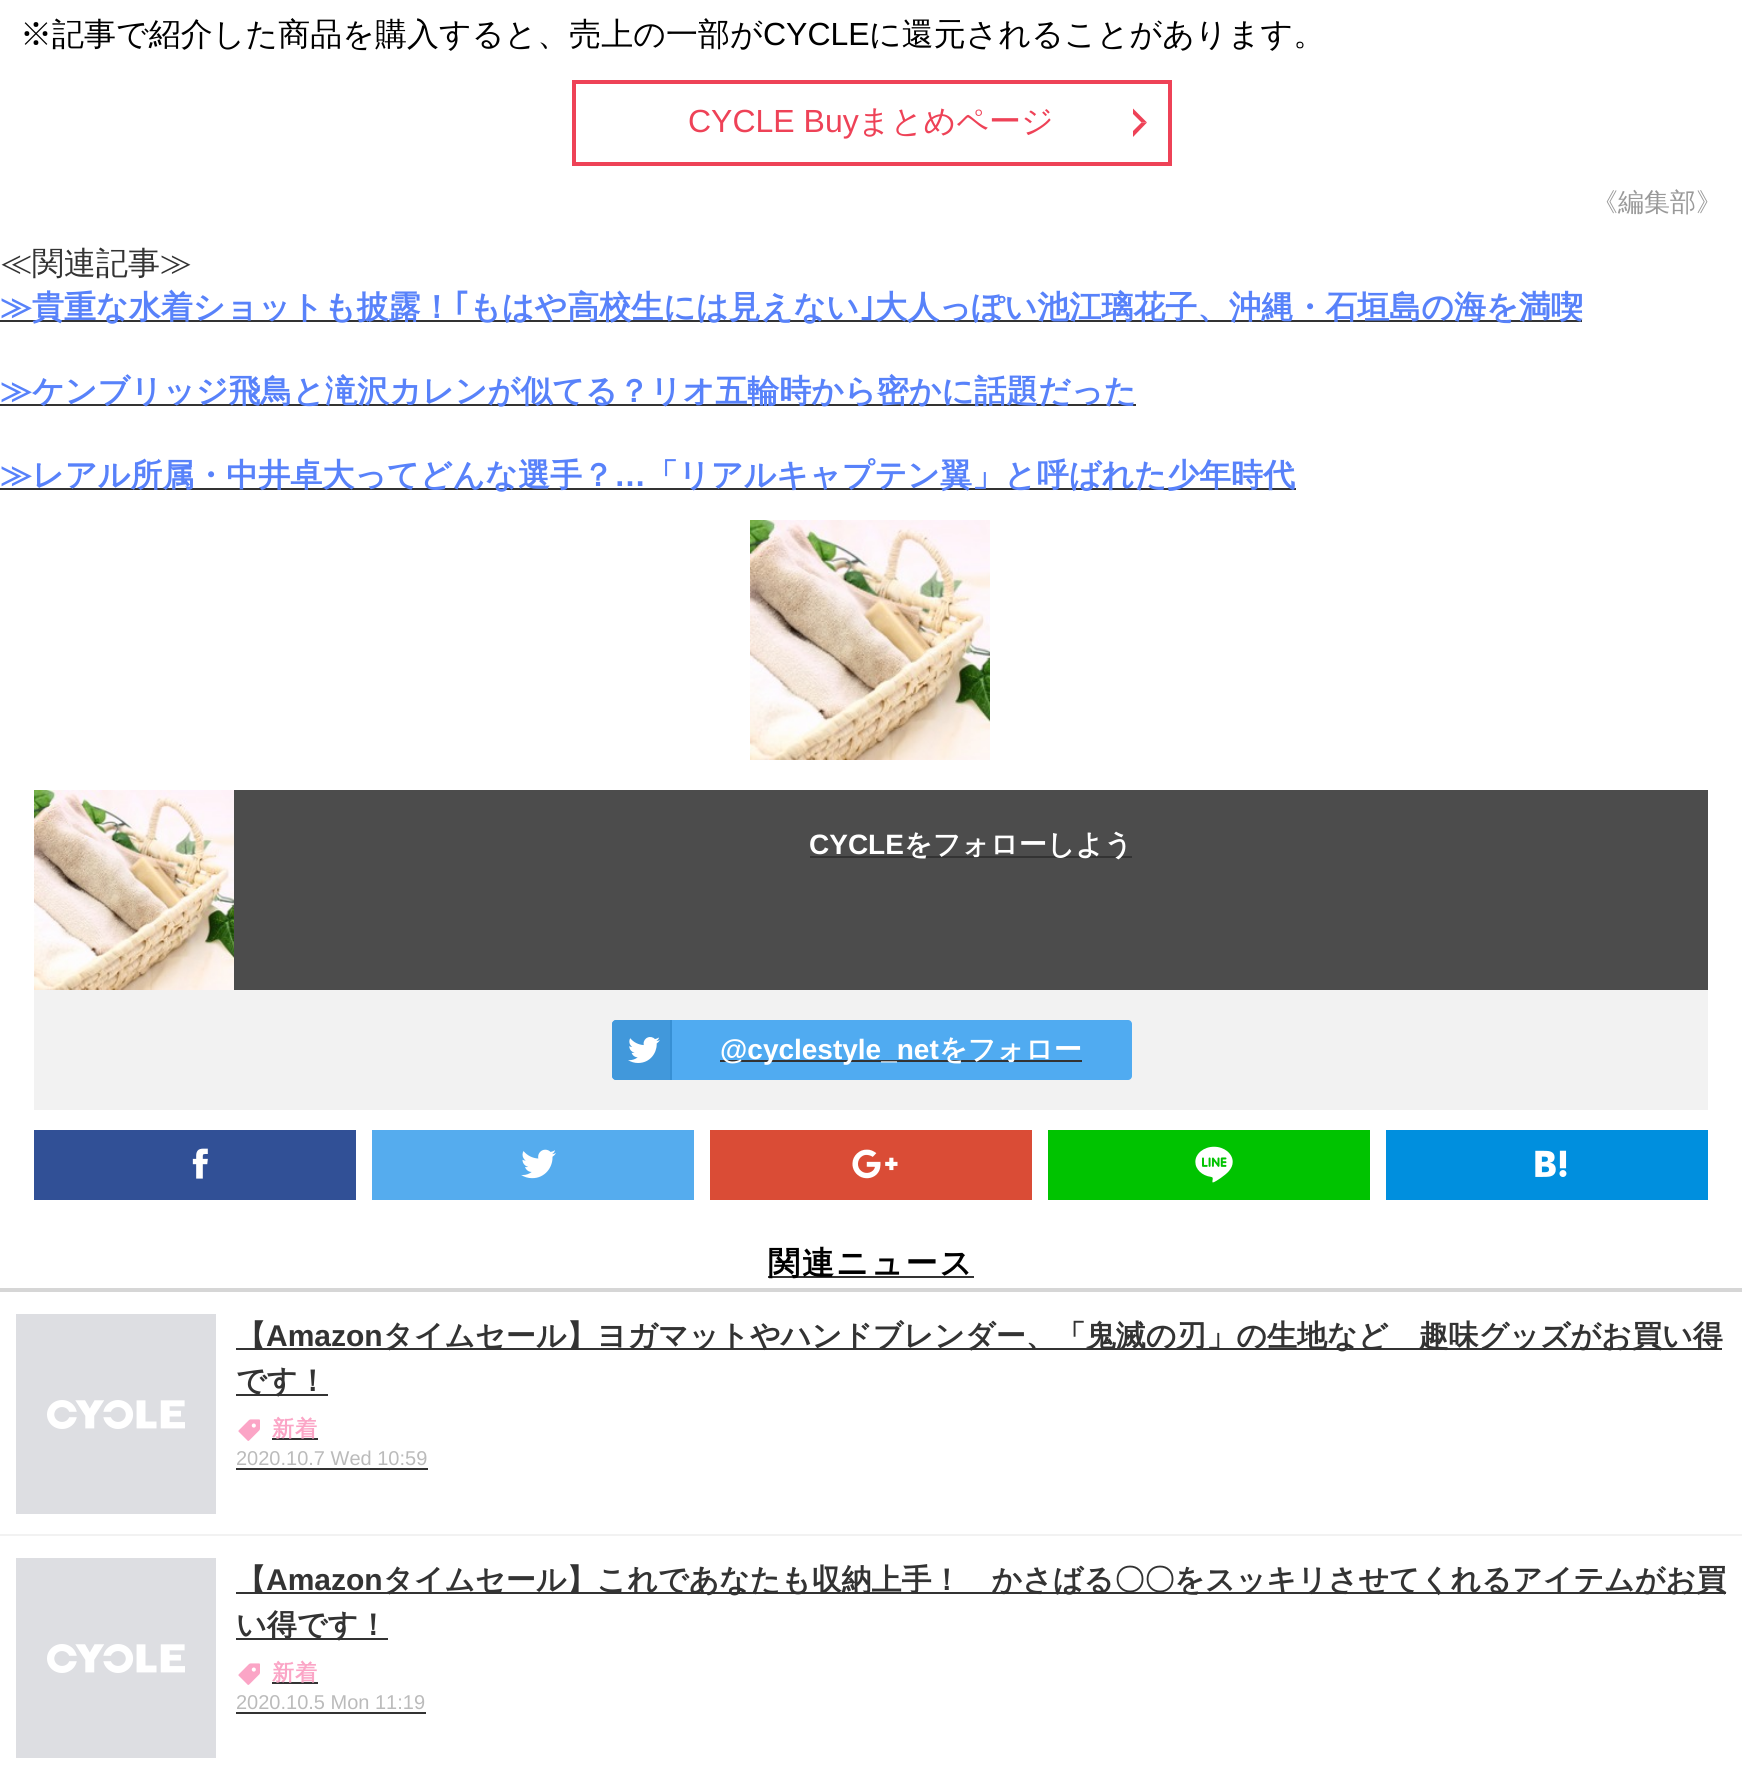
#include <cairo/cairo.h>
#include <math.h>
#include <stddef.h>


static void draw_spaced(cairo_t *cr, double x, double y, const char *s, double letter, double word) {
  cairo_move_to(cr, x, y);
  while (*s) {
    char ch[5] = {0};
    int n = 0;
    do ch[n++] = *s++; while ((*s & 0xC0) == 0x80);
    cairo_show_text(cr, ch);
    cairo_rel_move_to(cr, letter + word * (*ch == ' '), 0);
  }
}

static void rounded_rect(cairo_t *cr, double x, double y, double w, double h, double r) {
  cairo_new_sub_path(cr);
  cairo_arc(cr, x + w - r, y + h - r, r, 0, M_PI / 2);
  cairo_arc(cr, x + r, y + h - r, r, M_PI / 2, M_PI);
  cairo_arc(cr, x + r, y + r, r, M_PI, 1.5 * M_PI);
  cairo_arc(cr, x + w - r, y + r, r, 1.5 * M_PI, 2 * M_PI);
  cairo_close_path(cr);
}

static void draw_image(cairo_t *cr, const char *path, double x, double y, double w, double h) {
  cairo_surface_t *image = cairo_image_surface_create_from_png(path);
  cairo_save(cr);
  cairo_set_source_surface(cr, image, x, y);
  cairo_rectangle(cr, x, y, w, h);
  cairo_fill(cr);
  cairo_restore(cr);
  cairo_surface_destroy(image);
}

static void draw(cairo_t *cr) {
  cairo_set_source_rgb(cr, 1, 1, 1);
  cairo_paint(cr);
  cairo_rectangle(cr, 574, 82, 596, 82);
  cairo_set_source_rgb(cr, 238 / 255.0, 66 / 255.0, 87 / 255.0);
  cairo_set_line_width(cr, 4);
  cairo_stroke(cr);
  cairo_new_path(cr);
  cairo_move_to(cr, 1133, 108.5);
  cairo_line_to(cr, 1147, 122.5);
  cairo_line_to(cr, 1141.5, 122.5);
  cairo_line_to(cr, 1133, 114);
  cairo_close_path(cr);
  cairo_fill(cr);
  cairo_new_path(cr);
  cairo_move_to(cr, 1147, 122.5);
  cairo_line_to(cr, 1133, 137);
  cairo_line_to(cr, 1133, 131);
  cairo_line_to(cr, 1141.5, 122.5);
  cairo_close_path(cr);
  cairo_fill(cr);
  cairo_set_source_rgb(cr, 51 / 255.0, 51 / 255.0, 51 / 255.0);
  cairo_rectangle(cr, 0, 320, 1582, 2);
  cairo_fill(cr);
  cairo_rectangle(cr, 0, 404, 1136, 2);
  cairo_fill(cr);
  cairo_rectangle(cr, 0, 488, 1296, 2);
  cairo_fill(cr);
  draw_image(cr, "images/1.png", 750, 520, 240, 240);
  draw_image(cr, "images/2.png", 34, 790, 200, 200);
  cairo_set_source_rgb(cr, 76 / 255.0, 76 / 255.0, 76 / 255.0);
  cairo_rectangle(cr, 234, 790, 1474, 200);
  cairo_fill(cr);
  cairo_set_source_rgb(cr, 51 / 255.0, 51 / 255.0, 51 / 255.0);
  cairo_rectangle(cr, 810, 856, 322, 2);
  cairo_fill(cr);
  cairo_set_source_rgb(cr, 242 / 255.0, 242 / 255.0, 242 / 255.0);
  cairo_rectangle(cr, 34, 990, 1674, 120);
  cairo_fill(cr);
  cairo_set_source_rgb(cr, 80 / 255.0, 171 / 255.0, 241 / 255.0);
  rounded_rect(cr, 612, 1020, 520, 60, 4);
  cairo_fill(cr);
  cairo_set_source_rgb(cr, 65 / 255.0, 152 / 255.0, 219 / 255.0);
  cairo_new_path(cr);
  cairo_move_to(cr, 616, 1020);
  cairo_line_to(cr, 672, 1020);
  cairo_line_to(cr, 672, 1080);
  cairo_line_to(cr, 616, 1080);
  cairo_curve_to(cr, 614, 1080, 612, 1078, 612, 1076);
  cairo_line_to(cr, 612, 1024);
  cairo_curve_to(cr, 612, 1022, 614, 1020, 616, 1020);
  cairo_close_path(cr);
  cairo_fill(cr);
  cairo_set_source_rgb(cr, 55 / 255.0, 144 / 255.0, 212 / 255.0);
  cairo_rectangle(cr, 670, 1020, 2, 60);
  cairo_fill(cr);
  draw_image(cr, "images/3.png", 628, 1037, 32, 26);
  cairo_set_source_rgb(cr, 51 / 255.0, 51 / 255.0, 51 / 255.0);
  cairo_rectangle(cr, 720, 1060, 362, 2);
  cairo_fill(cr);
  cairo_set_source_rgb(cr, 49 / 255.0, 80 / 255.0, 150 / 255.0);
  cairo_rectangle(cr, 34, 1130, 322, 70);
  cairo_fill(cr);
  draw_image(cr, "images/4.png", 192, 1148, 16, 31);
  cairo_set_source_rgb(cr, 85 / 255.0, 172 / 255.0, 238 / 255.0);
  cairo_rectangle(cr, 372, 1130, 322, 70);
  cairo_fill(cr);
  draw_image(cr, "images/5.png", 521, 1149, 35, 30);
  cairo_set_source_rgb(cr, 218 / 255.0, 76 / 255.0, 54 / 255.0);
  cairo_rectangle(cr, 710, 1130, 322, 70);
  cairo_fill(cr);
  draw_image(cr, "images/6.png", 852, 1149, 46, 30);
  cairo_set_source_rgb(cr, 0, 195 / 255.0, 0);
  cairo_rectangle(cr, 1048, 1130, 322, 70);
  cairo_fill(cr);
  draw_image(cr, "images/7.png", 1195, 1146, 38, 37);
  cairo_set_source_rgb(cr, 0, 143 / 255.0, 222 / 255.0);
  cairo_rectangle(cr, 1386, 1130, 322, 70);
  cairo_fill(cr);
  draw_image(cr, "images/8.png", 1535, 1150, 32, 27);
  cairo_set_source_rgb(cr, 214 / 255.0, 214 / 255.0, 214 / 255.0);
  cairo_rectangle(cr, 0, 1288, 1742, 4);
  cairo_fill(cr);
  cairo_set_source_rgb(cr, 51 / 255.0, 51 / 255.0, 51 / 255.0);
  cairo_rectangle(cr, 768, 1276, 206, 2);
  cairo_fill(cr);
  cairo_set_source_rgb(cr, 242 / 255.0, 242 / 255.0, 242 / 255.0);
  cairo_rectangle(cr, 0, 1534, 1742, 2);
  cairo_fill(cr);
  cairo_set_source_rgb(cr, 221 / 255.0, 222 / 255.0, 226 / 255.0);
  cairo_rectangle(cr, 16, 1314, 200, 200);
  cairo_fill(cr);
  draw_image(cr, "images/9.png", 47, 1400, 138, 29);
  cairo_set_source_rgb(cr, 51 / 255.0, 51 / 255.0, 51 / 255.0);
  cairo_rectangle(cr, 236, 1348, 1486, 2);
  cairo_fill(cr);
  cairo_rectangle(cr, 236, 1394, 92, 2);
  cairo_fill(cr);
  draw_image(cr, "images/10.png", 238, 1419, 22, 22);
  cairo_rectangle(cr, 272, 1438, 46, 2);
  cairo_fill(cr);
  cairo_rectangle(cr, 236, 1468, 192, 2);
  cairo_fill(cr);
  cairo_set_source_rgb(cr, 221 / 255.0, 222 / 255.0, 226 / 255.0);
  cairo_rectangle(cr, 16, 1558, 200, 200);
  cairo_fill(cr);
  draw_image(cr, "images/9.png", 47, 1644, 138, 29);
  cairo_set_source_rgb(cr, 51 / 255.0, 51 / 255.0, 51 / 255.0);
  cairo_rectangle(cr, 236, 1592, 1490, 2);
  cairo_fill(cr);
  cairo_rectangle(cr, 236, 1638, 152, 2);
  cairo_fill(cr);
  draw_image(cr, "images/10.png", 238, 1663, 22, 22);
  cairo_rectangle(cr, 272, 1682, 46, 2);
  cairo_fill(cr);
  cairo_rectangle(cr, 236, 1712, 190, 2);
  cairo_fill(cr);
  cairo_select_font_face(cr, "WenQuanYi Zen Hei Medium", CAIRO_FONT_SLANT_NORMAL, CAIRO_FONT_WEIGHT_NORMAL);
  cairo_set_font_size(cr, 32);
  cairo_set_source_rgb(cr, 0, 0, 0);
  cairo_move_to(cr, 20, 45);
  cairo_show_text(cr, "※記事で紹介した商品を購入すると、売上の一部が");
  cairo_select_font_face(cr, "Liberation Sans", CAIRO_FONT_SLANT_NORMAL, CAIRO_FONT_WEIGHT_NORMAL);
  cairo_move_to(cr, 763, 45);
  cairo_show_text(cr, "CYCLE");
  cairo_select_font_face(cr, "WenQuanYi Zen Hei Medium", CAIRO_FONT_SLANT_NORMAL, CAIRO_FONT_WEIGHT_NORMAL);
  cairo_move_to(cr, 869, 45);
  cairo_show_text(cr, "に還元されることがあります。");
  cairo_select_font_face(cr, "Liberation Sans", CAIRO_FONT_SLANT_NORMAL, CAIRO_FONT_WEIGHT_NORMAL);
  cairo_set_source_rgb(cr, 238 / 255.0, 66 / 255.0, 87 / 255.0);
  cairo_move_to(cr, 688, 132);
  cairo_show_text(cr, "CYCLE Buy");
  cairo_select_font_face(cr, "WenQuanYi Zen Hei Medium", CAIRO_FONT_SLANT_NORMAL, CAIRO_FONT_WEIGHT_NORMAL);
  cairo_move_to(cr, 858, 132);
  cairo_show_text(cr, "まとめページ");
  cairo_set_font_size(cr, 26);
  cairo_set_source_rgb(cr, 153 / 255.0, 153 / 255.0, 153 / 255.0);
  cairo_move_to(cr, 1592, 211);
  cairo_show_text(cr, "《編集部》");
  cairo_set_font_size(cr, 32);
  cairo_set_source_rgb(cr, 51 / 255.0, 51 / 255.0, 51 / 255.0);
  cairo_move_to(cr, 0, 274);
  cairo_show_text(cr, "≪関連記事≫");
  cairo_select_font_face(cr, "WenQuanYi Zen Hei", CAIRO_FONT_SLANT_NORMAL, CAIRO_FONT_WEIGHT_BOLD);
  cairo_set_source_rgb(cr, 88 / 255.0, 130 / 255.0, 250 / 255.0);
  cairo_move_to(cr, 0, 318);
  cairo_show_text(cr, "≫貴重な水着ショットも披露！");
  cairo_select_font_face(cr, "IPAPGothic", CAIRO_FONT_SLANT_NORMAL, CAIRO_FONT_WEIGHT_BOLD);
  cairo_move_to(cr, 453, 318);
  cairo_show_text(cr, "｢");
  cairo_select_font_face(cr, "WenQuanYi Zen Hei", CAIRO_FONT_SLANT_NORMAL, CAIRO_FONT_WEIGHT_BOLD);
  cairo_move_to(cr, 469, 318);
  cairo_show_text(cr, "もはや高校生には見えない");
  cairo_select_font_face(cr, "IPAPGothic", CAIRO_FONT_SLANT_NORMAL, CAIRO_FONT_WEIGHT_BOLD);
  cairo_move_to(cr, 859, 318);
  cairo_show_text(cr, "｣");
  cairo_select_font_face(cr, "WenQuanYi Zen Hei", CAIRO_FONT_SLANT_NORMAL, CAIRO_FONT_WEIGHT_BOLD);
  cairo_move_to(cr, 875, 318);
  cairo_show_text(cr, "大人っぽい池江璃花子、沖縄・石垣島の海を満喫");
  cairo_move_to(cr, 0, 402);
  cairo_show_text(cr, "≫ケンブリッジ飛鳥と滝沢カレンが似てる？リオ五輪時から密かに話題だった");
  cairo_move_to(cr, 0, 486);
  cairo_show_text(cr, "≫レアル所属・中井卓大ってどんな選手？");
  cairo_select_font_face(cr, "Liberation Sans", CAIRO_FONT_SLANT_NORMAL, CAIRO_FONT_WEIGHT_BOLD);
  cairo_move_to(cr, 614, 486);
  cairo_show_text(cr, "…");
  cairo_select_font_face(cr, "WenQuanYi Zen Hei", CAIRO_FONT_SLANT_NORMAL, CAIRO_FONT_WEIGHT_BOLD);
  cairo_move_to(cr, 646, 486);
  cairo_show_text(cr, "「リアルキャプテン翼」と呼ばれた少年時代");
  cairo_select_font_face(cr, "Liberation Sans", CAIRO_FONT_SLANT_NORMAL, CAIRO_FONT_WEIGHT_BOLD);
  cairo_set_font_size(cr, 28);
  cairo_set_source_rgb(cr, 1, 1, 1);
  cairo_move_to(cr, 809, 854);
  cairo_show_text(cr, "CYCLE");
  cairo_select_font_face(cr, "WenQuanYi Zen Hei", CAIRO_FONT_SLANT_NORMAL, CAIRO_FONT_WEIGHT_BOLD);
  cairo_move_to(cr, 904, 854);
  cairo_show_text(cr, "をフォローしよう");
  cairo_select_font_face(cr, "Liberation Sans", CAIRO_FONT_SLANT_NORMAL, CAIRO_FONT_WEIGHT_BOLD);
  cairo_move_to(cr, 720, 1059);
  cairo_show_text(cr, "@cyclestyle_net");
  cairo_select_font_face(cr, "WenQuanYi Zen Hei", CAIRO_FONT_SLANT_NORMAL, CAIRO_FONT_WEIGHT_BOLD);
  cairo_move_to(cr, 939, 1059);
  cairo_show_text(cr, "をフォロー");
  cairo_set_font_size(cr, 32);
  cairo_set_source_rgb(cr, 0, 0, 0);
  draw_spaced(cr, 768, 1274, "関連ニュース", 2, 0);
  cairo_set_font_size(cr, 30);
  cairo_set_source_rgb(cr, 51 / 255.0, 51 / 255.0, 51 / 255.0);
  cairo_move_to(cr, 236, 1346);
  cairo_show_text(cr, "【");
  cairo_select_font_face(cr, "Liberation Sans", CAIRO_FONT_SLANT_NORMAL, CAIRO_FONT_WEIGHT_BOLD);
  cairo_move_to(cr, 266, 1346);
  cairo_show_text(cr, "Amazon");
  cairo_select_font_face(cr, "WenQuanYi Zen Hei", CAIRO_FONT_SLANT_NORMAL, CAIRO_FONT_WEIGHT_BOLD);
  cairo_move_to(cr, 383, 1346);
  cairo_show_text(cr, "タイムセール】ヨガマットやハンドブレンダー、「鬼滅の刃」の生地など　趣味グッズがお買い得");
  cairo_move_to(cr, 236, 1391);
  cairo_show_text(cr, "です！");
  cairo_set_font_size(cr, 22);
  cairo_set_source_rgb(cr, 251 / 255.0, 165 / 255.0, 198 / 255.0);
  draw_spaced(cr, 272, 1436, "新着", 1, 0);
  cairo_select_font_face(cr, "Liberation Sans", CAIRO_FONT_SLANT_NORMAL, CAIRO_FONT_WEIGHT_NORMAL);
  cairo_set_font_size(cr, 20);
  cairo_set_source_rgb(cr, 187 / 255.0, 187 / 255.0, 187 / 255.0);
  cairo_move_to(cr, 236, 1465);
  cairo_show_text(cr, "2020.10.7 Wed 10:59");
  cairo_select_font_face(cr, "WenQuanYi Zen Hei", CAIRO_FONT_SLANT_NORMAL, CAIRO_FONT_WEIGHT_BOLD);
  cairo_set_font_size(cr, 30);
  cairo_set_source_rgb(cr, 51 / 255.0, 51 / 255.0, 51 / 255.0);
  cairo_move_to(cr, 236, 1590);
  cairo_show_text(cr, "【");
  cairo_select_font_face(cr, "Liberation Sans", CAIRO_FONT_SLANT_NORMAL, CAIRO_FONT_WEIGHT_BOLD);
  cairo_move_to(cr, 266, 1590);
  cairo_show_text(cr, "Amazon");
  cairo_select_font_face(cr, "WenQuanYi Zen Hei", CAIRO_FONT_SLANT_NORMAL, CAIRO_FONT_WEIGHT_BOLD);
  cairo_move_to(cr, 383, 1590);
  cairo_show_text(cr, "タイムセール】これであなたも収納上手！　かさばる〇〇をスッキリさせてくれるアイテムがお買");
  cairo_move_to(cr, 236, 1635);
  cairo_show_text(cr, "い得です！");
  cairo_set_font_size(cr, 22);
  cairo_set_source_rgb(cr, 251 / 255.0, 165 / 255.0, 198 / 255.0);
  draw_spaced(cr, 272, 1680, "新着", 1, 0);
  cairo_select_font_face(cr, "Liberation Sans", CAIRO_FONT_SLANT_NORMAL, CAIRO_FONT_WEIGHT_NORMAL);
  cairo_set_font_size(cr, 20);
  cairo_set_source_rgb(cr, 187 / 255.0, 187 / 255.0, 187 / 255.0);
  cairo_move_to(cr, 236, 1709);
  cairo_show_text(cr, "2020.10.5 Mon 11:19");
}

int main(void) {
  cairo_surface_t *surface = cairo_image_surface_create(CAIRO_FORMAT_RGB24, 1742, 1765);
  cairo_t *cr = cairo_create(surface);
  cairo_font_options_t *options = cairo_font_options_create();
  cairo_font_options_set_hint_metrics(options, CAIRO_HINT_METRICS_OFF);
  cairo_font_options_set_hint_style(options, CAIRO_HINT_STYLE_NONE);
  cairo_set_font_options(cr, options);
  cairo_set_miter_limit(cr, 4);
  draw(cr);
  cairo_surface_write_to_png(surface, "out.png");
  cairo_font_options_destroy(options);
  cairo_destroy(cr);
  cairo_surface_destroy(surface);
  return 0;
}
